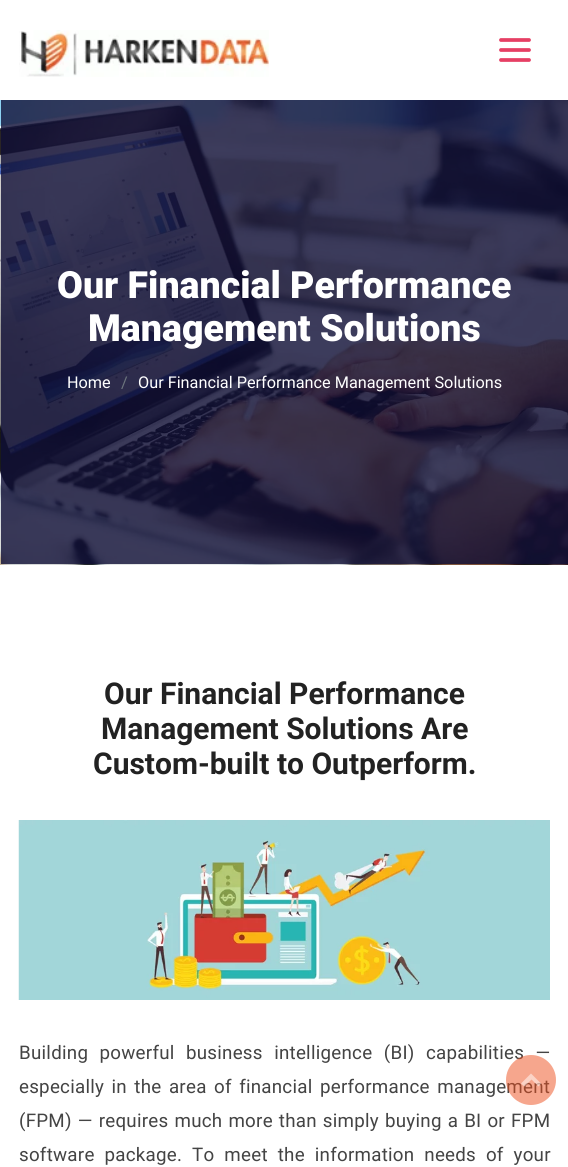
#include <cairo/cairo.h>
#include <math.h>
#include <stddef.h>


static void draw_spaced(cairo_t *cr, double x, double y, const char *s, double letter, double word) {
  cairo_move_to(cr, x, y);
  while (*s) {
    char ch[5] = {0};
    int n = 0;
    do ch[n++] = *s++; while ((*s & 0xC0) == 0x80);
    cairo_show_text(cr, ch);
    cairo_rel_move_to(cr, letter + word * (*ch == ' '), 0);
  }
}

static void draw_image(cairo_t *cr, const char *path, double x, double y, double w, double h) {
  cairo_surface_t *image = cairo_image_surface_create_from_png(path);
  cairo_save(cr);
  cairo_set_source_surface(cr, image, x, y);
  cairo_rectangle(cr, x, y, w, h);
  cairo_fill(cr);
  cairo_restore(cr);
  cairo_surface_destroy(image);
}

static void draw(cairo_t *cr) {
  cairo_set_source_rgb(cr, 1, 1, 1);
  cairo_paint(cr);
  draw_image(cr, "images/1.png", 19, 30, 250, 47);
  cairo_new_path(cr);
  cairo_move_to(cr, 501, 40);
  cairo_line_to(cr, 529, 40);
  cairo_move_to(cr, 501, 50);
  cairo_line_to(cr, 529, 50);
  cairo_move_to(cr, 501, 60);
  cairo_line_to(cr, 529, 60);
  cairo_set_source_rgb(cr, 230 / 255.0, 63 / 255.0, 100 / 255.0);
  cairo_set_line_width(cr, 3.8);
  cairo_set_line_cap(cr, CAIRO_LINE_CAP_ROUND);
  cairo_stroke(cr);
  draw_image(cr, "images/2.png", 0, 100, 568, 465);
  draw_image(cr, "images/3.png", 18, 820, 532, 180);
  cairo_select_font_face(cr, "Roboto Black", CAIRO_FONT_SLANT_NORMAL, CAIRO_FONT_WEIGHT_NORMAL);
  cairo_set_font_size(cr, 37.5);
  cairo_set_source_rgb(cr, 1, 1, 1);
  cairo_move_to(cr, 57, 298);
  cairo_show_text(cr, "Our Financial Performance");
  cairo_move_to(cr, 88, 341);
  cairo_show_text(cr, "Management Solutions");
  cairo_select_font_face(cr, "Roboto", CAIRO_FONT_SLANT_NORMAL, CAIRO_FONT_WEIGHT_NORMAL);
  cairo_set_font_size(cr, 16.25);
  cairo_move_to(cr, 67, 388);
  cairo_show_text(cr, "Home");
  cairo_set_source_rgb(cr, 108 / 255.0, 117 / 255.0, 125 / 255.0);
  cairo_move_to(cr, 121, 388);
  cairo_show_text(cr, "/");
  cairo_set_source_rgb(cr, 1, 1, 1);
  cairo_move_to(cr, 138, 388);
  cairo_show_text(cr, "Our Financial Performance Management Solutions");
  cairo_select_font_face(cr, "Roboto", CAIRO_FONT_SLANT_NORMAL, CAIRO_FONT_WEIGHT_BOLD);
  cairo_set_font_size(cr, 30);
  cairo_set_source_rgb(cr, 34 / 255.0, 34 / 255.0, 34 / 255.0);
  cairo_move_to(cr, 104, 704);
  cairo_show_text(cr, "Our Financial Performance");
  cairo_move_to(cr, 101, 739);
  cairo_show_text(cr, "Management Solutions Are");
  cairo_move_to(cr, 93, 774);
  cairo_show_text(cr, "Custom-built to Outperform.");
  cairo_select_font_face(cr, "Roboto", CAIRO_FONT_SLANT_NORMAL, CAIRO_FONT_WEIGHT_NORMAL);
  cairo_set_font_size(cr, 18.75);
  cairo_set_source_rgb(cr, 68 / 255.0, 68 / 255.0, 68 / 255.0);
  draw_spaced(cr, 19, 1059, "Building powerful business intelligence (BI) capabilities —", 0.25, 6.5);
  draw_spaced(cr, 19, 1093, "especially in the area of financial performance management", 0.25, 2.5);
  draw_spaced(cr, 19, 1127, "(FPM) — requires much more than simply buying a BI or FPM", 0.25, 1.1);
  draw_spaced(cr, 19, 1161, "software package. To meet the information needs of your", 0.25, 5);
  cairo_set_source_rgba(cr, 238 / 255.0, 78 / 255.0, 29 / 255.0, 0.5);
  cairo_new_path(cr);
  cairo_arc(cr, 531, 1080, 25, 0, 2 * M_PI);
  cairo_fill(cr);
  cairo_set_source_rgba(cr, 1, 1, 1, 0.5);
  cairo_new_path(cr);
  cairo_move_to(cr, 531, 1073.5);
  cairo_line_to(cr, 541, 1083.5);
  cairo_line_to(cr, 538.5, 1086.5);
  cairo_line_to(cr, 531.5, 1079.5);
  cairo_line_to(cr, 524.5, 1086.5);
  cairo_line_to(cr, 521, 1083.5);
  cairo_close_path(cr);
  cairo_fill(cr);
}

int main(void) {
  cairo_surface_t *surface = cairo_image_surface_create(CAIRO_FORMAT_RGB24, 568, 1167);
  cairo_t *cr = cairo_create(surface);
  cairo_font_options_t *options = cairo_font_options_create();
  cairo_font_options_set_hint_metrics(options, CAIRO_HINT_METRICS_OFF);
  cairo_font_options_set_hint_style(options, CAIRO_HINT_STYLE_NONE);
  cairo_set_font_options(cr, options);
  cairo_set_miter_limit(cr, 4);
  draw(cr);
  cairo_surface_write_to_png(surface, "out.png");
  cairo_font_options_destroy(options);
  cairo_destroy(cr);
  cairo_surface_destroy(surface);
  return 0;
}
